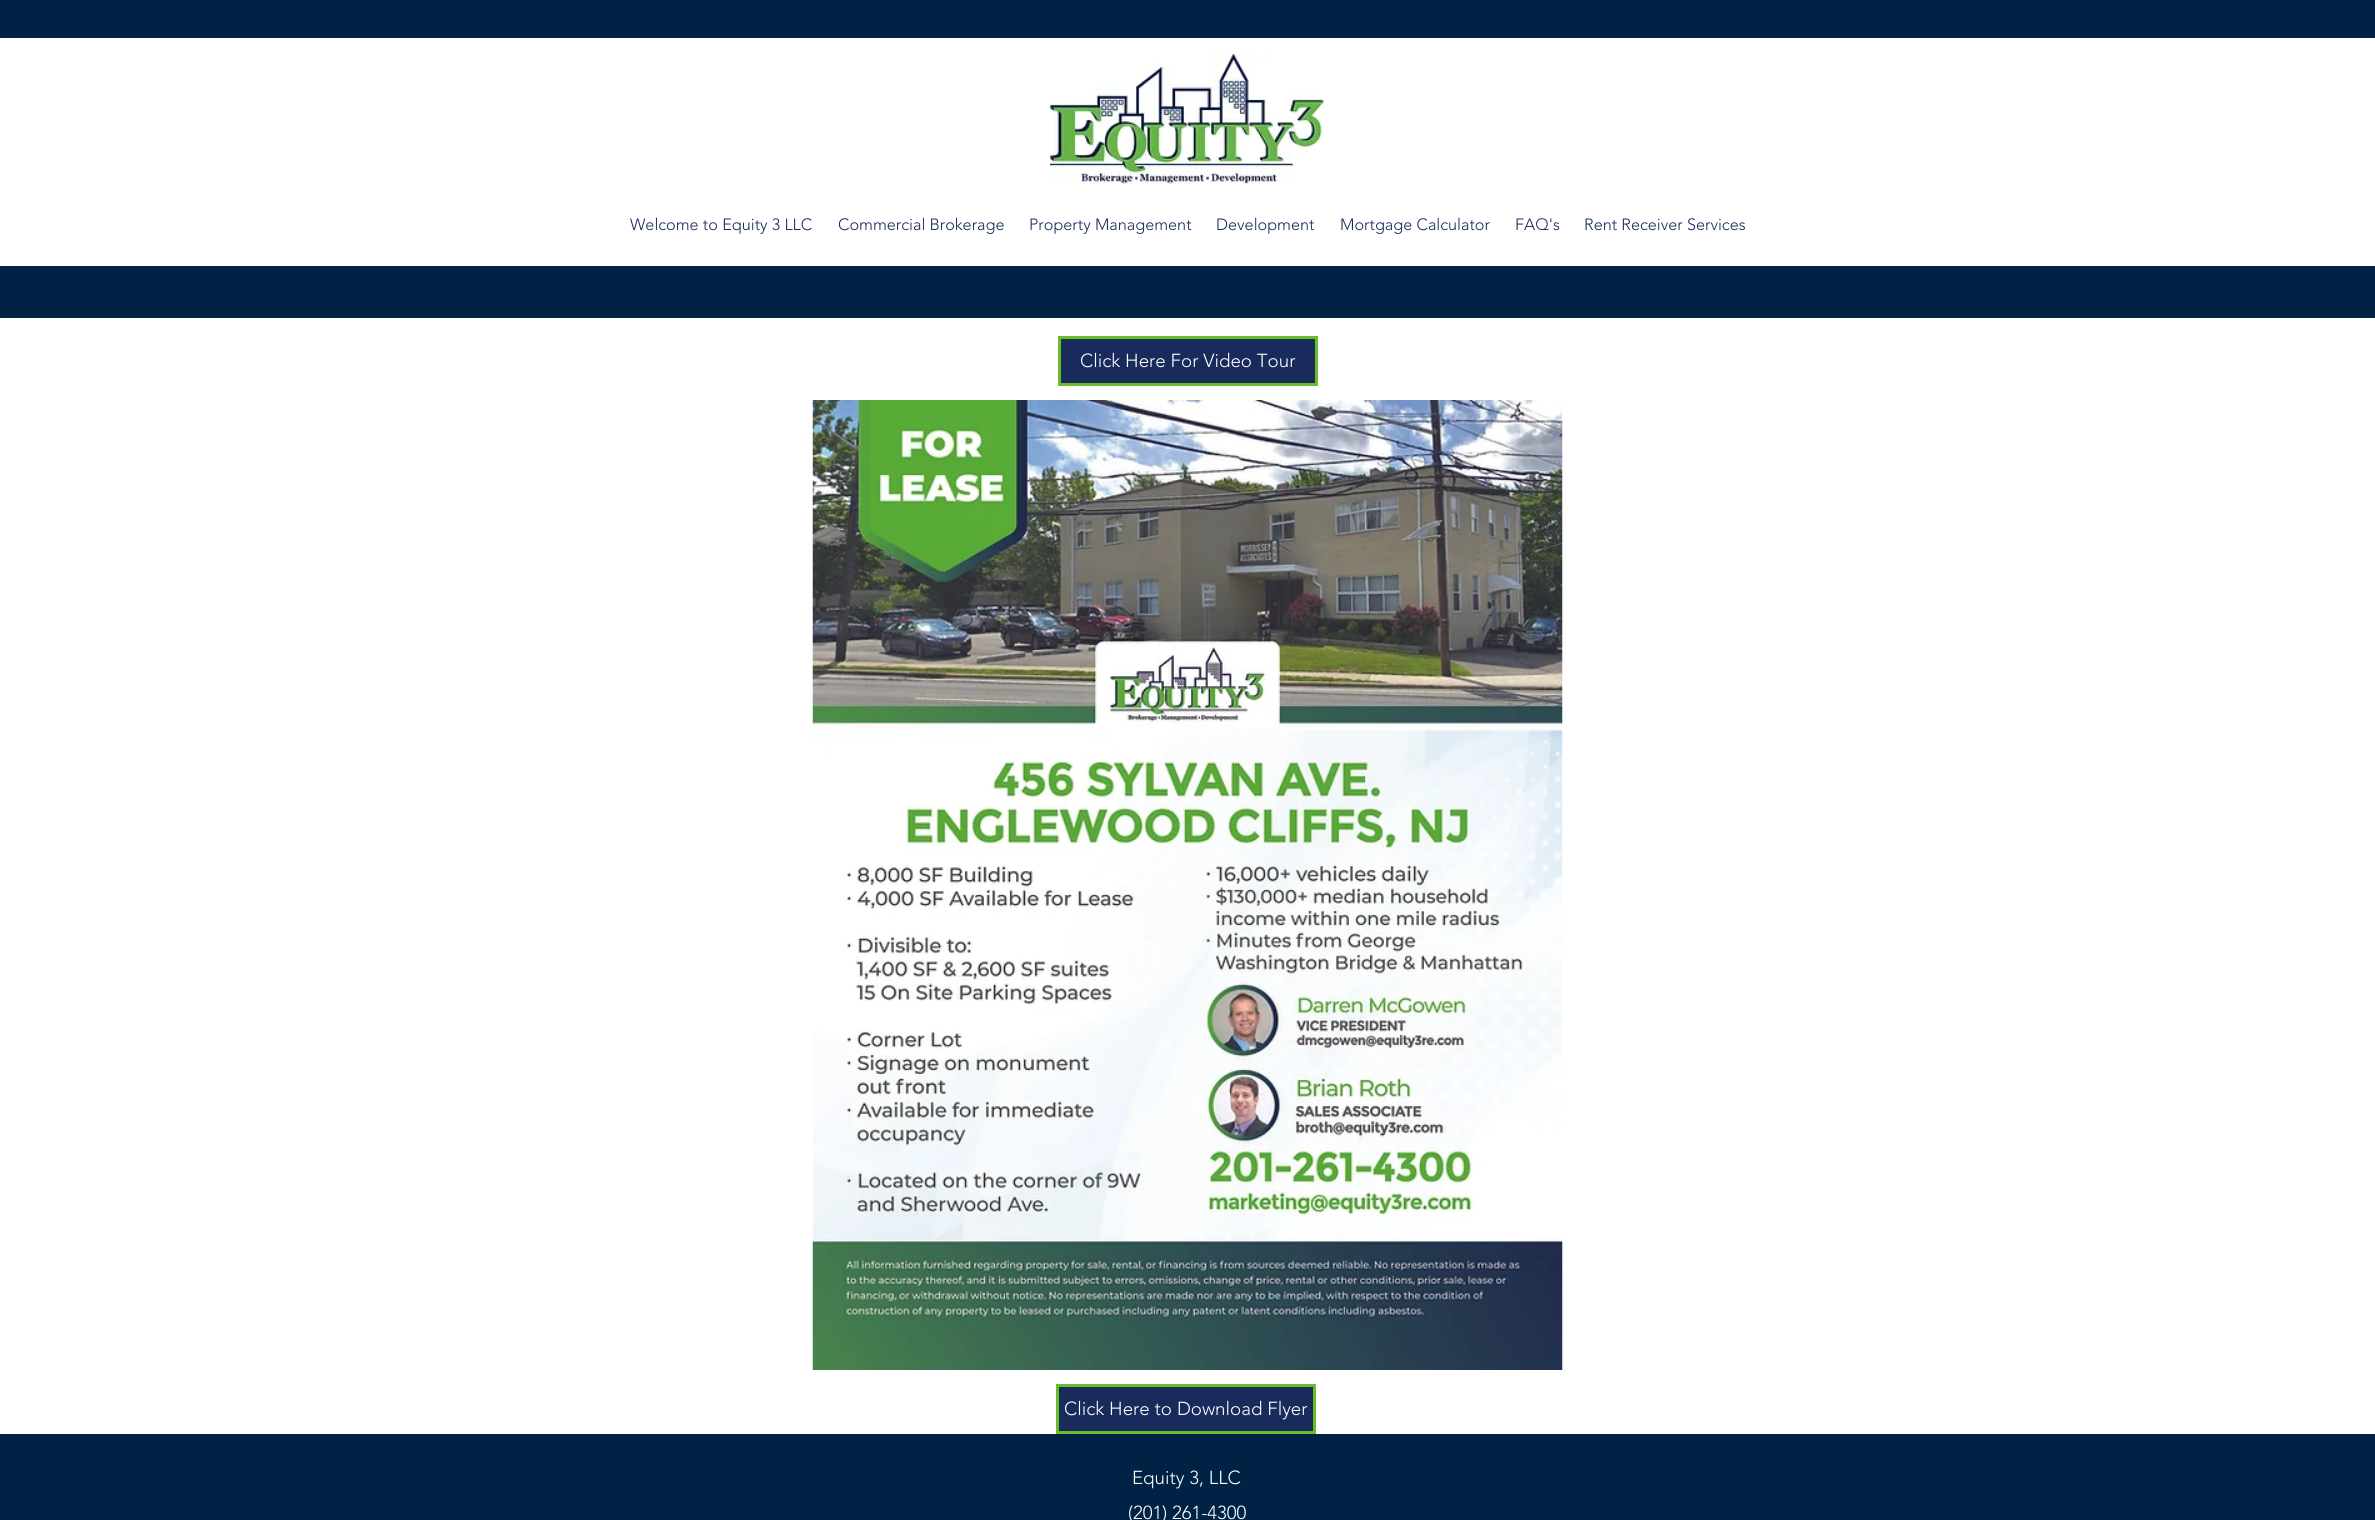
#include <cairo/cairo.h>
#include <math.h>
#include <stddef.h>


static void draw_image(cairo_t *cr, const char *path, double x, double y, double w, double h) {
  cairo_surface_t *image = cairo_image_surface_create_from_png(path);
  cairo_save(cr);
  cairo_set_source_surface(cr, image, x, y);
  cairo_rectangle(cr, x, y, w, h);
  cairo_fill(cr);
  cairo_restore(cr);
  cairo_surface_destroy(image);
}

static void draw(cairo_t *cr) {
  cairo_set_source_rgb(cr, 1, 1, 1);
  cairo_paint(cr);
  cairo_set_source_rgb(cr, 0, 34 / 255.0, 68 / 255.0);
  cairo_rectangle(cr, 0, 0, 2375, 318);
  cairo_fill(cr);
  cairo_set_source_rgb(cr, 1, 1, 1);
  cairo_rectangle(cr, 0, 38, 2375, 228);
  cairo_fill(cr);
  draw_image(cr, "images/1.png", 1050, 53, 274, 131);
  cairo_set_source_rgb(cr, 25 / 255.0, 42 / 255.0, 92 / 255.0);
  cairo_rectangle(cr, 1059.5, 337.5, 257, 47);
  cairo_fill_preserve(cr);
  cairo_set_source_rgb(cr, 105 / 255.0, 190 / 255.0, 40 / 255.0);
  cairo_set_line_width(cr, 3);
  cairo_stroke(cr);
  draw_image(cr, "images/2.png", 812, 400, 751, 970);
  cairo_set_source_rgb(cr, 25 / 255.0, 42 / 255.0, 92 / 255.0);
  cairo_rectangle(cr, 1057.5, 1385.5, 257, 47);
  cairo_fill_preserve(cr);
  cairo_set_source_rgb(cr, 105 / 255.0, 190 / 255.0, 40 / 255.0);
  cairo_stroke(cr);
  cairo_set_source_rgb(cr, 0, 34 / 255.0, 68 / 255.0);
  cairo_rectangle(cr, 0, 1435, 2375, 85);
  cairo_fill(cr);
  cairo_set_source_rgb(cr, 4 / 255.0, 35 / 255.0, 72 / 255.0);
  cairo_rectangle(cr, 0, 1434, 2375, 1);
  cairo_fill(cr);
  cairo_select_font_face(cr, "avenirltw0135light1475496 Light", CAIRO_FONT_SLANT_NORMAL, CAIRO_FONT_WEIGHT_NORMAL);
  cairo_set_font_size(cr, 16.25);
  cairo_set_source_rgb(cr, 25 / 255.0, 42 / 255.0, 92 / 255.0);
  cairo_move_to(cr, 630, 230);
  cairo_show_text(cr, "Welcome to Equity 3 LLC");
  cairo_move_to(cr, 838, 230);
  cairo_show_text(cr, "Commercial Brokerage");
  cairo_move_to(cr, 1029, 230);
  cairo_show_text(cr, "Property Management");
  cairo_move_to(cr, 1216, 230);
  cairo_show_text(cr, "Development");
  cairo_move_to(cr, 1340, 230);
  cairo_show_text(cr, "Mortgage Calculator");
  cairo_move_to(cr, 1515, 230);
  cairo_show_text(cr, "FAQ's");
  cairo_move_to(cr, 1584, 230);
  cairo_show_text(cr, "Rent Receiver Services");
  cairo_set_font_size(cr, 18.75);
  cairo_set_source_rgb(cr, 1, 1, 1);
  cairo_move_to(cr, 1080, 367);
  cairo_show_text(cr, "Click Here For Video Tour");
  cairo_move_to(cr, 1064, 1415);
  cairo_show_text(cr, "Click Here to Download Flyer");
  cairo_move_to(cr, 1132, 1484);
  cairo_show_text(cr, "Equity 3, LLC");
  cairo_move_to(cr, 1128, 1519);
  cairo_show_text(cr, "(201) 261-4300");
}

int main(void) {
  cairo_surface_t *surface = cairo_image_surface_create(CAIRO_FORMAT_RGB24, 2375, 1520);
  cairo_t *cr = cairo_create(surface);
  cairo_font_options_t *options = cairo_font_options_create();
  cairo_font_options_set_hint_metrics(options, CAIRO_HINT_METRICS_OFF);
  cairo_font_options_set_hint_style(options, CAIRO_HINT_STYLE_NONE);
  cairo_set_font_options(cr, options);
  cairo_set_miter_limit(cr, 4);
  draw(cr);
  cairo_surface_write_to_png(surface, "out.png");
  cairo_font_options_destroy(options);
  cairo_destroy(cr);
  cairo_surface_destroy(surface);
  return 0;
}
